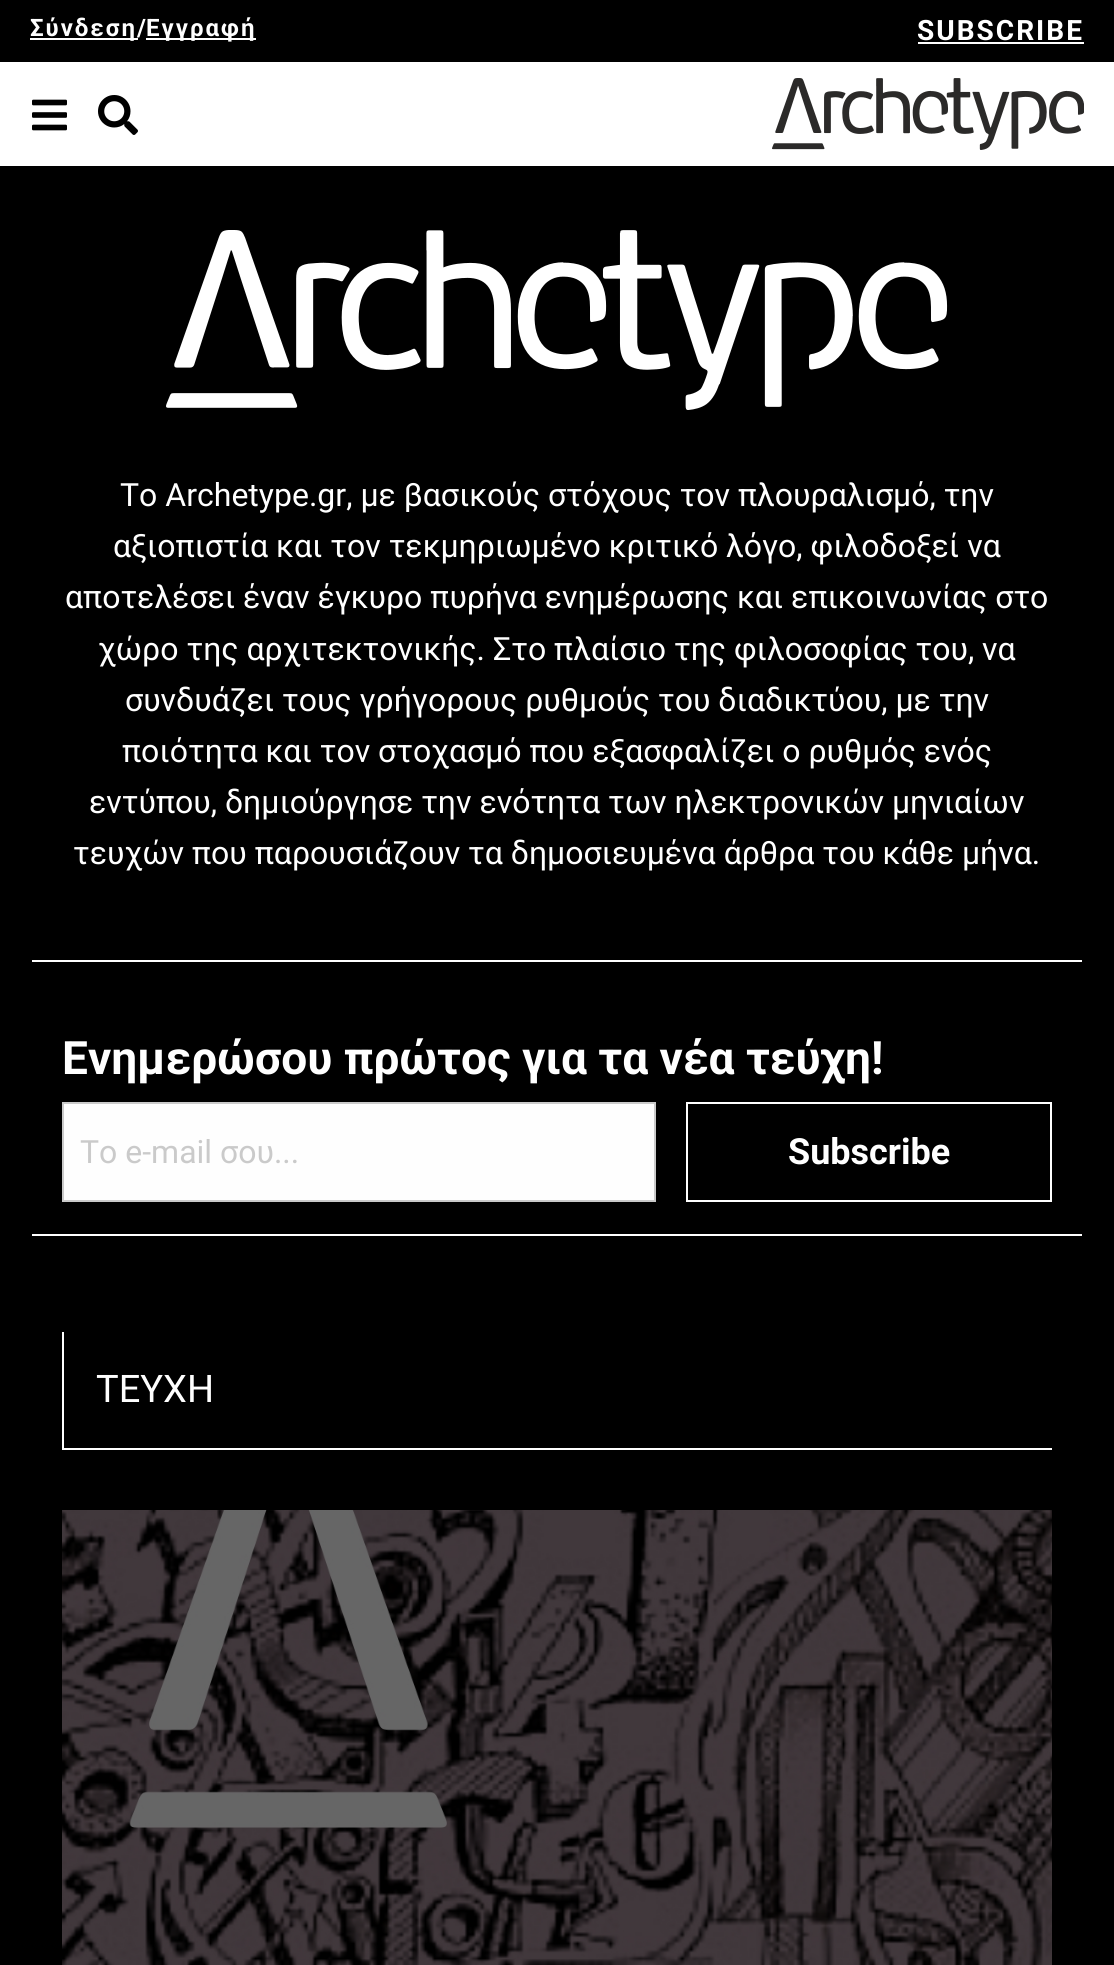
#include <cairo/cairo.h>
#include <math.h>
#include <stddef.h>


static void draw_spaced(cairo_t *cr, double x, double y, const char *s, double letter, double word) {
  cairo_move_to(cr, x, y);
  while (*s) {
    char ch[5] = {0};
    int n = 0;
    do ch[n++] = *s++; while ((*s & 0xC0) == 0x80);
    cairo_show_text(cr, ch);
    cairo_rel_move_to(cr, letter + word * (*ch == ' '), 0);
  }
}

static void draw_image(cairo_t *cr, const char *path, double x, double y, double w, double h) {
  cairo_surface_t *image = cairo_image_surface_create_from_png(path);
  cairo_save(cr);
  cairo_set_source_surface(cr, image, x, y);
  cairo_rectangle(cr, x, y, w, h);
  cairo_fill(cr);
  cairo_restore(cr);
  cairo_surface_destroy(image);
}

static void draw(cairo_t *cr) {
  cairo_set_source_rgb(cr, 0, 0, 0);
  cairo_paint(cr);
  cairo_set_source_rgb(cr, 1, 1, 1);
  cairo_rectangle(cr, 0, 62, 1114, 104);
  cairo_fill(cr);
  cairo_rectangle(cr, 30, 38, 108, 2);
  cairo_fill(cr);
  cairo_rectangle(cr, 146, 38, 110, 2);
  cairo_fill(cr);
  cairo_rectangle(cr, 918, 42, 166, 2);
  cairo_fill(cr);
  draw_image(cr, "images/1.png", 32, 99, 35, 32);
  draw_image(cr, "images/2.png", 98, 95, 40, 40);
  draw_image(cr, "images/3.png", 772, 78, 312, 72);
  draw_image(cr, "images/4.png", 166, 230, 782, 180);
  cairo_rectangle(cr, 32, 960, 1050, 2);
  cairo_fill(cr);
  cairo_rectangle(cr, 32, 1234, 1050, 2);
  cairo_fill(cr);
  cairo_set_source_rgb(cr, 254 / 255.0, 254 / 255.0, 254 / 255.0);
  cairo_rectangle(cr, 63, 1103, 592, 98);
  cairo_fill_preserve(cr);
  cairo_set_source_rgb(cr, 202 / 255.0, 202 / 255.0, 202 / 255.0);
  cairo_stroke(cr);
  cairo_rectangle(cr, 687, 1103, 364, 98);
  cairo_set_source_rgb(cr, 1, 1, 1);
  cairo_stroke(cr);
  cairo_rectangle(cr, 62, 1448, 990, 2);
  cairo_fill(cr);
  cairo_rectangle(cr, 62, 1332, 2, 118);
  cairo_fill(cr);
  draw_image(cr, "images/5.png", 62, 1510, 990, 455);
  cairo_select_font_face(cr, "Roboto", CAIRO_FONT_SLANT_NORMAL, CAIRO_FONT_WEIGHT_BOLD);
  cairo_set_font_size(cr, 24);
  draw_spaced(cr, 30, 36, "Σύνδεση", 2, 0);
  cairo_move_to(cr, 137, 36);
  cairo_show_text(cr, "/");
  draw_spaced(cr, 146, 36, "Εγγραφή", 2, 0);
  cairo_set_font_size(cr, 28);
  draw_spaced(cr, 917, 40, "SUBSCRIBE", 2, 0);
  cairo_select_font_face(cr, "Roboto", CAIRO_FONT_SLANT_NORMAL, CAIRO_FONT_WEIGHT_NORMAL);
  cairo_set_font_size(cr, 32);
  cairo_move_to(cr, 120, 506);
  cairo_show_text(cr, "Το Archetype.gr, με βασικούς στόχους τον πλουραλισμό, την");
  cairo_move_to(cr, 113, 557);
  cairo_show_text(cr, "αξιοπιστία και τον τεκμηριωμένο κριτικό λόγο, φιλοδοξεί να");
  cairo_move_to(cr, 65, 608);
  cairo_show_text(cr, "αποτελέσει έναν έγκυρο πυρήνα ενημέρωσης και επικοινωνίας στο");
  cairo_move_to(cr, 98, 660);
  cairo_show_text(cr, "χώρο της αρχιτεκτονικής. Στο πλαίσιο της φιλοσοφίας του, να");
  cairo_move_to(cr, 125, 711);
  cairo_show_text(cr, "συνδυάζει τους γρήγορους ρυθμούς του διαδικτύου, με την");
  cairo_move_to(cr, 122, 762);
  cairo_show_text(cr, "ποιότητα και τον στοχασμό που εξασφαλίζει ο ρυθμός ενός");
  cairo_move_to(cr, 89, 813);
  cairo_show_text(cr, "εντύπου, δημιούργησε την ενότητα των ηλεκτρονικών μηνιαίων");
  cairo_move_to(cr, 73, 864);
  cairo_show_text(cr, "τευχών που παρουσιάζουν τα δημοσιευμένα άρθρα του κάθε μήνα.");
  cairo_select_font_face(cr, "Roboto", CAIRO_FONT_SLANT_NORMAL, CAIRO_FONT_WEIGHT_BOLD);
  cairo_set_font_size(cr, 46);
  cairo_move_to(cr, 62, 1074);
  cairo_show_text(cr, "Ενημερώσου πρώτος για τα νέα τεύχη!");
  cairo_select_font_face(cr, "Roboto", CAIRO_FONT_SLANT_NORMAL, CAIRO_FONT_WEIGHT_NORMAL);
  cairo_set_font_size(cr, 32);
  cairo_set_source_rgb(cr, 202 / 255.0, 202 / 255.0, 202 / 255.0);
  cairo_move_to(cr, 80, 1163);
  cairo_show_text(cr, "Το e-mail σου...");
  cairo_select_font_face(cr, "Roboto", CAIRO_FONT_SLANT_NORMAL, CAIRO_FONT_WEIGHT_BOLD);
  cairo_set_font_size(cr, 36);
  cairo_set_source_rgb(cr, 1, 1, 1);
  cairo_move_to(cr, 788, 1164);
  cairo_show_text(cr, "Subscribe");
  cairo_select_font_face(cr, "Roboto", CAIRO_FONT_SLANT_NORMAL, CAIRO_FONT_WEIGHT_NORMAL);
  cairo_set_font_size(cr, 38);
  cairo_move_to(cr, 96, 1402);
  cairo_show_text(cr, "TEYXH");
}

int main(void) {
  cairo_surface_t *surface = cairo_image_surface_create(CAIRO_FORMAT_RGB24, 1114, 1965);
  cairo_t *cr = cairo_create(surface);
  cairo_font_options_t *options = cairo_font_options_create();
  cairo_font_options_set_hint_metrics(options, CAIRO_HINT_METRICS_OFF);
  cairo_font_options_set_hint_style(options, CAIRO_HINT_STYLE_NONE);
  cairo_set_font_options(cr, options);
  cairo_set_miter_limit(cr, 4);
  draw(cr);
  cairo_surface_write_to_png(surface, "out.png");
  cairo_font_options_destroy(options);
  cairo_destroy(cr);
  cairo_surface_destroy(surface);
  return 0;
}
